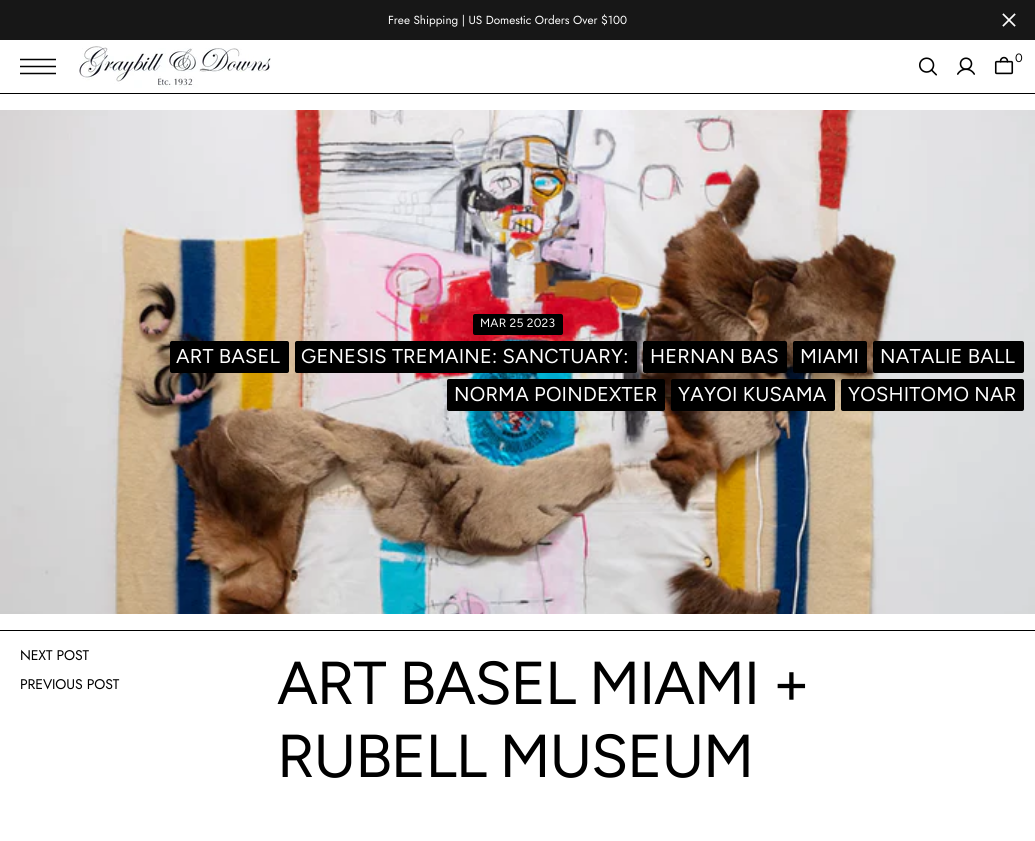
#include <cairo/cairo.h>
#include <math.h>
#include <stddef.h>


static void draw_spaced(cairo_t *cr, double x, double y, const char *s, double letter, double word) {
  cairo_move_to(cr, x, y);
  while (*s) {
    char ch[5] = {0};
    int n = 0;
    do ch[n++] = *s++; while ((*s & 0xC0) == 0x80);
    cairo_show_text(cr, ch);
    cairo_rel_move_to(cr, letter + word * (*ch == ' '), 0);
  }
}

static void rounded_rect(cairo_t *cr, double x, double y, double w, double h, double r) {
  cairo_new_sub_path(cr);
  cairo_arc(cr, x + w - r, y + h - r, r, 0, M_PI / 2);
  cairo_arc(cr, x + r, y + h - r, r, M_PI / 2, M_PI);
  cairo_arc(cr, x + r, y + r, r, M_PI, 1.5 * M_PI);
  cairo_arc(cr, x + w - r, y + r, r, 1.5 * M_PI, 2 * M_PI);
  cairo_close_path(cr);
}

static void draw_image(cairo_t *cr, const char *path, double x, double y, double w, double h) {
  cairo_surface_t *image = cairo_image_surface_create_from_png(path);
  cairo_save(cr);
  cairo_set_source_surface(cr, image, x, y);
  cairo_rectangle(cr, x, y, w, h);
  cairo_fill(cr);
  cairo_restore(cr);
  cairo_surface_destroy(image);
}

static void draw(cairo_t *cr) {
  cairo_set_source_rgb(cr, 1, 1, 1);
  cairo_paint(cr);
  cairo_set_source_rgb(cr, 23 / 255.0, 23 / 255.0, 23 / 255.0);
  cairo_rectangle(cr, 0, 0, 1035, 40);
  cairo_fill(cr);
  cairo_new_path(cr);
  cairo_move_to(cr, 1014.5, 14.5);
  cairo_line_to(cr, 1003.5, 25.5);
  cairo_move_to(cr, 1014.5, 25.5);
  cairo_line_to(cr, 1003.5, 14.5);
  cairo_set_source_rgb(cr, 253 / 255.0, 253 / 255.0, 253 / 255.0);
  cairo_set_line_width(cr, 1.7);
  cairo_set_line_cap(cr, CAIRO_LINE_CAP_SQUARE);
  cairo_set_line_join(cr, CAIRO_LINE_JOIN_ROUND);
  cairo_stroke(cr);
  cairo_set_source_rgb(cr, 0, 0, 0);
  cairo_rectangle(cr, 0, 93, 1035, 1);
  cairo_fill(cr);
  cairo_new_path(cr);
  cairo_move_to(cr, 20, 59.5);
  cairo_line_to(cr, 56, 59.5);
  cairo_move_to(cr, 20, 66.5);
  cairo_line_to(cr, 56, 66.5);
  cairo_move_to(cr, 20, 73.5);
  cairo_line_to(cr, 56, 73.5);
  cairo_set_line_width(cr, 1.5);
  cairo_set_line_cap(cr, CAIRO_LINE_CAP_BUTT);
  cairo_set_line_join(cr, CAIRO_LINE_JOIN_MITER);
  cairo_stroke(cr);
  draw_image(cr, "images/1.png", 79, 46, 192, 42);
  draw_image(cr, "images/2.png", 919, 57, 18, 19);
  draw_image(cr, "images/3.png", 957, 57, 18, 18);
  draw_image(cr, "images/4.png", 994, 56, 20, 19);
  draw_image(cr, "images/5.png", 0, 110, 1035, 504);
  rounded_rect(cr, 473, 314, 90, 21, 2);
  cairo_fill(cr);
  rounded_rect(cr, 170, 341, 119, 32, 2);
  cairo_fill(cr);
  rounded_rect(cr, 295, 341, 342, 32, 2);
  cairo_fill(cr);
  rounded_rect(cr, 643, 341, 144, 32, 2);
  cairo_fill(cr);
  rounded_rect(cr, 793, 341, 74, 32, 2);
  cairo_fill(cr);
  rounded_rect(cr, 873, 341, 151, 32, 2);
  cairo_fill(cr);
  rounded_rect(cr, 447, 379, 218, 32, 2);
  cairo_fill(cr);
  rounded_rect(cr, 671, 379, 164, 32, 2);
  cairo_fill(cr);
  rounded_rect(cr, 841, 379, 183, 32, 2);
  cairo_fill(cr);
  cairo_rectangle(cr, 0, 630, 1035, 1);
  cairo_fill(cr);
  cairo_select_font_face(cr, "Jost", CAIRO_FONT_SLANT_NORMAL, CAIRO_FONT_WEIGHT_NORMAL);
  cairo_set_font_size(cr, 11.7);
  cairo_set_source_rgb(cr, 253 / 255.0, 253 / 255.0, 253 / 255.0);
  cairo_move_to(cr, 388, 24);
  cairo_show_text(cr, "Free Shipping | US Domestic Orders Over $100");
  cairo_select_font_face(cr, "Figtree", CAIRO_FONT_SLANT_NORMAL, CAIRO_FONT_WEIGHT_NORMAL);
  cairo_set_font_size(cr, 12);
  cairo_set_source_rgb(cr, 0, 0, 0);
  cairo_move_to(cr, 1015, 62);
  cairo_show_text(cr, "0");
  cairo_set_source_rgb(cr, 253 / 255.0, 253 / 255.0, 253 / 255.0);
  draw_spaced(cr, 480, 327, "MAR 25 2023", 0.2, 0);
  cairo_set_font_size(cr, 20);
  draw_spaced(cr, 176, 363, "ART BASEL", 0.2, 0);
  draw_spaced(cr, 301, 363, "GENESIS TREMAINE: SANCTUARY:", 0.2, 0);
  draw_spaced(cr, 650, 363, "HERNAN BAS", 0.2, 0);
  draw_spaced(cr, 800, 363, "MIAMI", 0.2, 0);
  draw_spaced(cr, 880, 363, "NATALIE BALL", 0.2, 0);
  draw_spaced(cr, 454, 401, "NORMA POINDEXTER", 0.2, 0);
  draw_spaced(cr, 678, 401, "YAYOI KUSAMA", 0.2, 0);
  draw_spaced(cr, 848, 401, "YOSHITOMO NAR", 0.2, 0);
  cairo_select_font_face(cr, "Jost", CAIRO_FONT_SLANT_NORMAL, CAIRO_FONT_WEIGHT_NORMAL);
  cairo_set_font_size(cr, 14);
  cairo_set_source_rgb(cr, 0, 0, 0);
  draw_spaced(cr, 20, 660, "NEXT POST", -0.1, 0);
  draw_spaced(cr, 20, 689, "PREVIOUS POST", -0.1, 0);
  cairo_select_font_face(cr, "Figtree", CAIRO_FONT_SLANT_NORMAL, CAIRO_FONT_WEIGHT_NORMAL);
  cairo_set_font_size(cr, 60.5);
  draw_spaced(cr, 277, 704, "ART BASEL MIAMI +", -1.25, 0);
  draw_spaced(cr, 277, 777, "RUBELL MUSEUM", -1.25, 0);
}

int main(void) {
  cairo_surface_t *surface = cairo_image_surface_create(CAIRO_FORMAT_RGB24, 1035, 841);
  cairo_t *cr = cairo_create(surface);
  cairo_font_options_t *options = cairo_font_options_create();
  cairo_font_options_set_hint_metrics(options, CAIRO_HINT_METRICS_OFF);
  cairo_font_options_set_hint_style(options, CAIRO_HINT_STYLE_NONE);
  cairo_set_font_options(cr, options);
  cairo_set_miter_limit(cr, 4);
  draw(cr);
  cairo_surface_write_to_png(surface, "out.png");
  cairo_font_options_destroy(options);
  cairo_destroy(cr);
  cairo_surface_destroy(surface);
  return 0;
}
